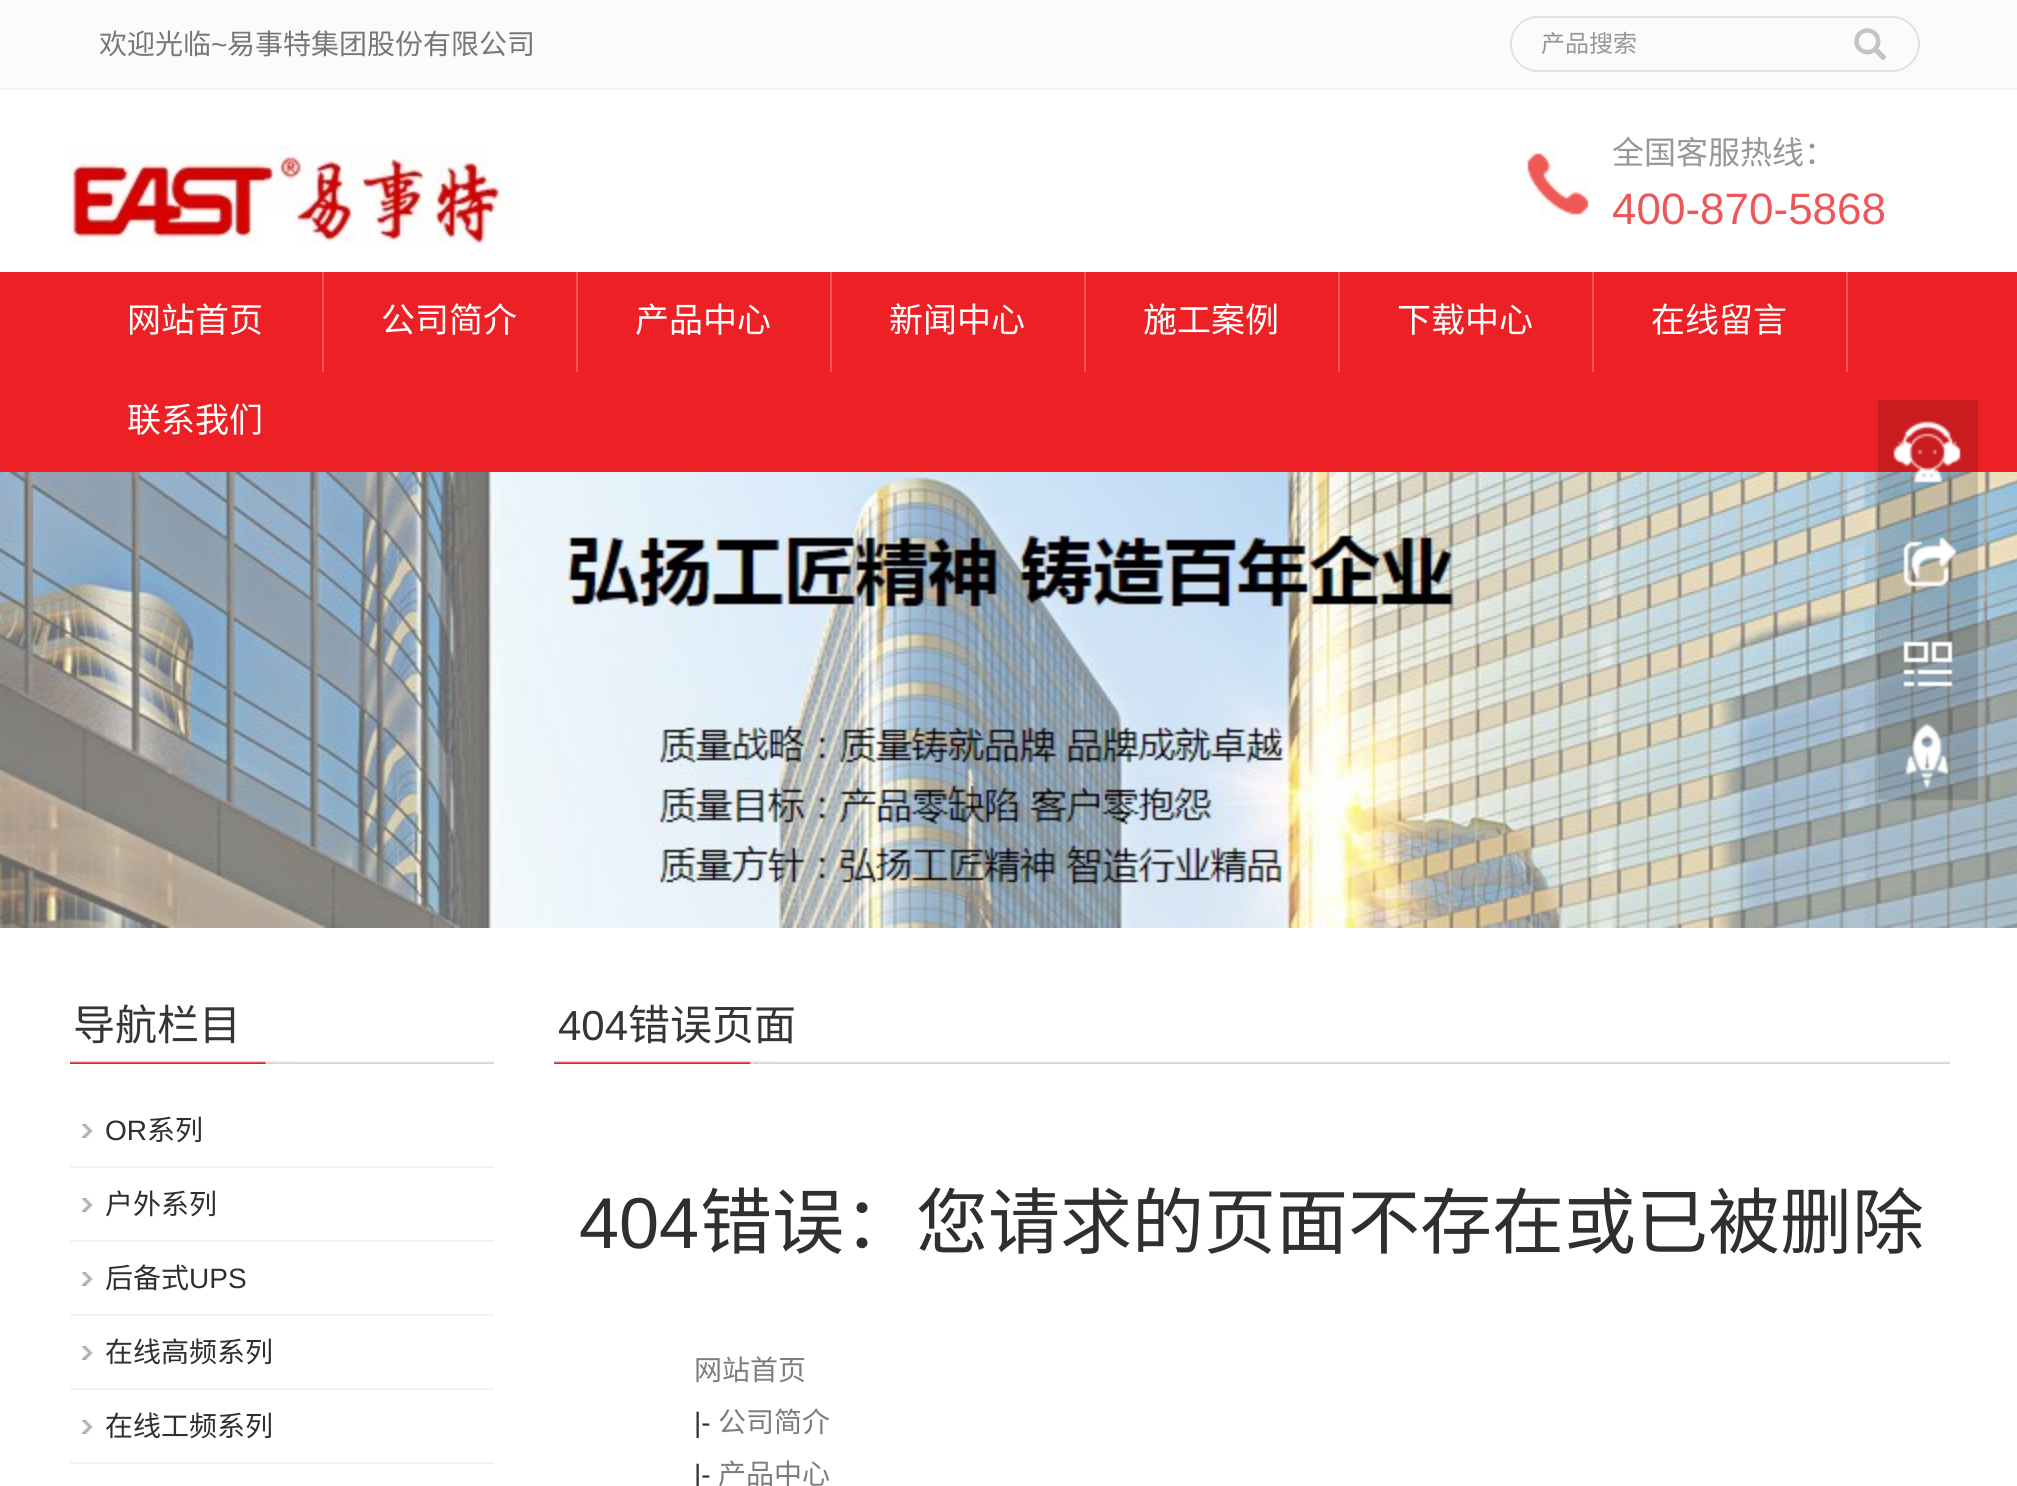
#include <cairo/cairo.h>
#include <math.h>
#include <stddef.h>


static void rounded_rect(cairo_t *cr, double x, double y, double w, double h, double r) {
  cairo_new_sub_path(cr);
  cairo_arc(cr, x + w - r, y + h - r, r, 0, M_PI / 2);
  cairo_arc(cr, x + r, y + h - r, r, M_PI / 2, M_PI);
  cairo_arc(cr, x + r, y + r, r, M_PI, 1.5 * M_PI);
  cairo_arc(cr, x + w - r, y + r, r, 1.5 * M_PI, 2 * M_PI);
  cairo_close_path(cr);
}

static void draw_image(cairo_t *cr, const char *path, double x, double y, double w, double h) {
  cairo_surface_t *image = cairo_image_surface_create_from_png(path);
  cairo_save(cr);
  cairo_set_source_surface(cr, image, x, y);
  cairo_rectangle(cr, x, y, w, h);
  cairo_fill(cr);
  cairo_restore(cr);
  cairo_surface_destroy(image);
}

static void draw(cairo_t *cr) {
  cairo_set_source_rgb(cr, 1, 1, 1);
  cairo_paint(cr);
  cairo_set_source_rgb(cr, 251 / 255.0, 251 / 255.0, 251 / 255.0);
  cairo_rectangle(cr, 0, 0, 2017, 88);
  cairo_fill(cr);
  cairo_set_source_rgb(cr, 243 / 255.0, 243 / 255.0, 243 / 255.0);
  cairo_rectangle(cr, 0, 88, 2017, 2);
  cairo_fill(cr);
  rounded_rect(cr, 1511, 17, 408, 54, 27);
  cairo_set_source_rgb(cr, 223 / 255.0, 225 / 255.0, 227 / 255.0);
  cairo_stroke(cr);
  draw_image(cr, "images/1.png", 1854, 28, 33, 33);
  draw_image(cr, "images/2.png", 70, 145, 448, 99);
  draw_image(cr, "images/3.png", 1524, 150, 65, 65);
  cairo_set_source_rgb(cr, 237 / 255.0, 32 / 255.0, 37 / 255.0);
  cairo_rectangle(cr, 0, 272, 2017, 200);
  cairo_fill(cr);
  cairo_set_source_rgb(cr, 251 / 255.0, 86 / 255.0, 80 / 255.0);
  cairo_rectangle(cr, 322, 272, 2, 100);
  cairo_fill(cr);
  cairo_rectangle(cr, 576, 272, 2, 100);
  cairo_fill(cr);
  cairo_rectangle(cr, 830, 272, 2, 100);
  cairo_fill(cr);
  cairo_rectangle(cr, 1084, 272, 2, 100);
  cairo_fill(cr);
  cairo_rectangle(cr, 1338, 272, 2, 100);
  cairo_fill(cr);
  cairo_rectangle(cr, 1592, 272, 2, 100);
  cairo_fill(cr);
  cairo_rectangle(cr, 1846, 272, 2, 100);
  cairo_fill(cr);
  draw_image(cr, "images/5.png", 0, 472, 2017, 456);
  draw_image(cr, "images/4.png", 1878, 400, 100, 401);
  draw_image(cr, "images/6.png", 70, 1058, 424, 6);
  draw_image(cr, "images/7.png", 82, 1124, 11, 14);
  cairo_set_source_rgb(cr, 242 / 255.0, 242 / 255.0, 242 / 255.0);
  cairo_rectangle(cr, 70, 1166, 424, 2);
  cairo_fill(cr);
  draw_image(cr, "images/7.png", 82, 1198, 11, 14);
  cairo_rectangle(cr, 70, 1240, 424, 2);
  cairo_fill(cr);
  draw_image(cr, "images/7.png", 82, 1272, 11, 14);
  cairo_rectangle(cr, 70, 1314, 424, 2);
  cairo_fill(cr);
  draw_image(cr, "images/7.png", 82, 1346, 11, 14);
  cairo_rectangle(cr, 70, 1388, 424, 2);
  cairo_fill(cr);
  draw_image(cr, "images/7.png", 82, 1420, 11, 14);
  cairo_rectangle(cr, 70, 1462, 424, 2);
  cairo_fill(cr);
  draw_image(cr, "images/8.png", 554, 1058, 1396, 6);
  cairo_select_font_face(cr, "Noto Sans CJK SC", CAIRO_FONT_SLANT_NORMAL, CAIRO_FONT_WEIGHT_NORMAL);
  cairo_set_font_size(cr, 28);
  cairo_set_source_rgb(cr, 119 / 255.0, 119 / 255.0, 119 / 255.0);
  cairo_move_to(cr, 99, 54);
  cairo_show_text(cr, "欢迎光临");
  cairo_select_font_face(cr, "Liberation Sans", CAIRO_FONT_SLANT_NORMAL, CAIRO_FONT_WEIGHT_NORMAL);
  cairo_move_to(cr, 211, 54);
  cairo_show_text(cr, "~");
  cairo_select_font_face(cr, "Noto Sans CJK SC", CAIRO_FONT_SLANT_NORMAL, CAIRO_FONT_WEIGHT_NORMAL);
  cairo_move_to(cr, 227, 54);
  cairo_show_text(cr, "易事特集团股份有限公司");
  cairo_set_font_size(cr, 24);
  cairo_set_source_rgb(cr, 151 / 255.0, 151 / 255.0, 151 / 255.0);
  cairo_move_to(cr, 1541, 52);
  cairo_show_text(cr, "产品搜索");
  cairo_set_font_size(cr, 32);
  cairo_move_to(cr, 1612, 164);
  cairo_show_text(cr, "全国客服热线：");
  cairo_select_font_face(cr, "Liberation Sans", CAIRO_FONT_SLANT_NORMAL, CAIRO_FONT_WEIGHT_NORMAL);
  cairo_set_font_size(cr, 44);
  cairo_set_source_rgb(cr, 237 / 255.0, 87 / 255.0, 89 / 255.0);
  cairo_move_to(cr, 1612, 224);
  cairo_show_text(cr, "400-870-5868");
  cairo_select_font_face(cr, "Noto Sans CJK SC", CAIRO_FONT_SLANT_NORMAL, CAIRO_FONT_WEIGHT_NORMAL);
  cairo_set_font_size(cr, 34);
  cairo_set_source_rgb(cr, 1, 1, 1);
  cairo_move_to(cr, 127, 332);
  cairo_show_text(cr, "网站首页");
  cairo_move_to(cr, 381, 332);
  cairo_show_text(cr, "公司简介");
  cairo_move_to(cr, 635, 332);
  cairo_show_text(cr, "产品中心");
  cairo_move_to(cr, 889, 332);
  cairo_show_text(cr, "新闻中心");
  cairo_move_to(cr, 1143, 332);
  cairo_show_text(cr, "施工案例");
  cairo_move_to(cr, 1397, 332);
  cairo_show_text(cr, "下载中心");
  cairo_move_to(cr, 1651, 332);
  cairo_show_text(cr, "在线留言");
  cairo_move_to(cr, 127, 432);
  cairo_show_text(cr, "联系我们");
  cairo_set_font_size(cr, 42);
  cairo_set_source_rgb(cr, 54 / 255.0, 53 / 255.0, 52 / 255.0);
  cairo_move_to(cr, 73, 1040);
  cairo_show_text(cr, "导航栏目");
  cairo_select_font_face(cr, "Liberation Sans", CAIRO_FONT_SLANT_NORMAL, CAIRO_FONT_WEIGHT_NORMAL);
  cairo_set_font_size(cr, 28);
  cairo_set_source_rgb(cr, 47 / 255.0, 47 / 255.0, 47 / 255.0);
  cairo_move_to(cr, 105, 1140);
  cairo_show_text(cr, "OR");
  cairo_select_font_face(cr, "Noto Sans CJK SC", CAIRO_FONT_SLANT_NORMAL, CAIRO_FONT_WEIGHT_NORMAL);
  cairo_move_to(cr, 147, 1140);
  cairo_show_text(cr, "系列");
  cairo_move_to(cr, 105, 1214);
  cairo_show_text(cr, "户外系列");
  cairo_move_to(cr, 105, 1288);
  cairo_show_text(cr, "后备式");
  cairo_select_font_face(cr, "Liberation Sans", CAIRO_FONT_SLANT_NORMAL, CAIRO_FONT_WEIGHT_NORMAL);
  cairo_move_to(cr, 189, 1288);
  cairo_show_text(cr, "UPS");
  cairo_select_font_face(cr, "Noto Sans CJK SC", CAIRO_FONT_SLANT_NORMAL, CAIRO_FONT_WEIGHT_NORMAL);
  cairo_move_to(cr, 105, 1362);
  cairo_show_text(cr, "在线高频系列");
  cairo_move_to(cr, 105, 1436);
  cairo_show_text(cr, "在线工频系列");
  cairo_select_font_face(cr, "Liberation Sans", CAIRO_FONT_SLANT_NORMAL, CAIRO_FONT_WEIGHT_NORMAL);
  cairo_set_font_size(cr, 42);
  cairo_set_source_rgb(cr, 54 / 255.0, 53 / 255.0, 52 / 255.0);
  cairo_move_to(cr, 558, 1040);
  cairo_show_text(cr, "404");
  cairo_select_font_face(cr, "Noto Sans CJK SC", CAIRO_FONT_SLANT_NORMAL, CAIRO_FONT_WEIGHT_NORMAL);
  cairo_move_to(cr, 628, 1040);
  cairo_show_text(cr, "错误页面");
  cairo_select_font_face(cr, "Liberation Sans", CAIRO_FONT_SLANT_NORMAL, CAIRO_FONT_WEIGHT_NORMAL);
  cairo_set_font_size(cr, 72);
  cairo_set_source_rgb(cr, 47 / 255.0, 47 / 255.0, 47 / 255.0);
  cairo_move_to(cr, 579, 1248);
  cairo_show_text(cr, "404");
  cairo_select_font_face(cr, "Noto Sans CJK SC", CAIRO_FONT_SLANT_NORMAL, CAIRO_FONT_WEIGHT_NORMAL);
  cairo_move_to(cr, 700, 1248);
  cairo_show_text(cr, "错误：您请求的页面不存在或已被删除");
  cairo_set_font_size(cr, 28);
  cairo_set_source_rgb(cr, 125 / 255.0, 125 / 255.0, 125 / 255.0);
  cairo_move_to(cr, 694, 1380);
  cairo_show_text(cr, "网站首页");
  cairo_select_font_face(cr, "Liberation Sans", CAIRO_FONT_SLANT_NORMAL, CAIRO_FONT_WEIGHT_NORMAL);
  cairo_set_source_rgb(cr, 47 / 255.0, 47 / 255.0, 47 / 255.0);
  cairo_move_to(cr, 694, 1432);
  cairo_show_text(cr, "|-");
  cairo_select_font_face(cr, "Noto Sans CJK SC", CAIRO_FONT_SLANT_NORMAL, CAIRO_FONT_WEIGHT_NORMAL);
  cairo_set_source_rgb(cr, 125 / 255.0, 125 / 255.0, 125 / 255.0);
  cairo_move_to(cr, 718, 1432);
  cairo_show_text(cr, "公司简介");
  cairo_select_font_face(cr, "Liberation Sans", CAIRO_FONT_SLANT_NORMAL, CAIRO_FONT_WEIGHT_NORMAL);
  cairo_set_source_rgb(cr, 47 / 255.0, 47 / 255.0, 47 / 255.0);
  cairo_move_to(cr, 694, 1484);
  cairo_show_text(cr, "|-");
  cairo_select_font_face(cr, "Noto Sans CJK SC", CAIRO_FONT_SLANT_NORMAL, CAIRO_FONT_WEIGHT_NORMAL);
  cairo_set_source_rgb(cr, 125 / 255.0, 125 / 255.0, 125 / 255.0);
  cairo_move_to(cr, 718, 1484);
  cairo_show_text(cr, "产品中心");
}

int main(void) {
  cairo_surface_t *surface = cairo_image_surface_create(CAIRO_FORMAT_RGB24, 2017, 1486);
  cairo_t *cr = cairo_create(surface);
  cairo_font_options_t *options = cairo_font_options_create();
  cairo_font_options_set_hint_metrics(options, CAIRO_HINT_METRICS_OFF);
  cairo_font_options_set_hint_style(options, CAIRO_HINT_STYLE_NONE);
  cairo_set_font_options(cr, options);
  cairo_set_miter_limit(cr, 4);
  draw(cr);
  cairo_surface_write_to_png(surface, "out.png");
  cairo_font_options_destroy(options);
  cairo_destroy(cr);
  cairo_surface_destroy(surface);
  return 0;
}
